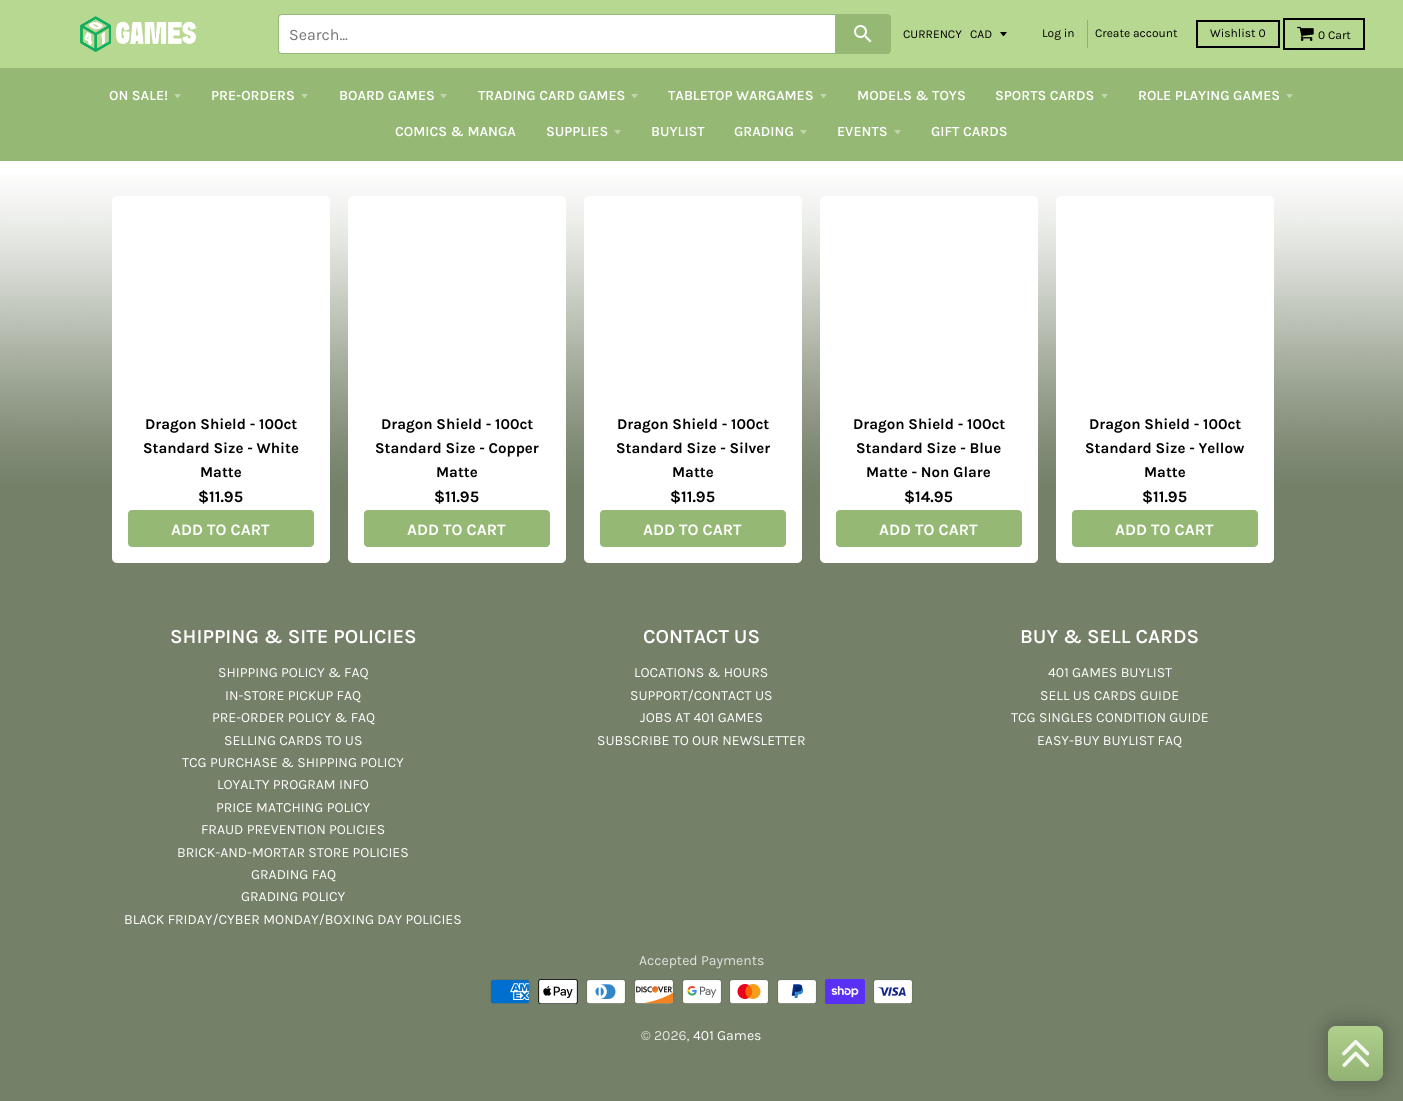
#include <cairo/cairo.h>
#include <math.h>
#include <stddef.h>


static void rounded_rect(cairo_t *cr, double x, double y, double w, double h, double r) {
  cairo_new_sub_path(cr);
  cairo_arc(cr, x + w - r, y + h - r, r, 0, M_PI / 2);
  cairo_arc(cr, x + r, y + h - r, r, M_PI / 2, M_PI);
  cairo_arc(cr, x + r, y + r, r, M_PI, 1.5 * M_PI);
  cairo_arc(cr, x + w - r, y + r, r, 1.5 * M_PI, 2 * M_PI);
  cairo_close_path(cr);
}

static void draw_shadow(cairo_t *cr, double x, double y, double w, double h, double r, double blur, double alpha) {
  cairo_push_group_with_content(cr, CAIRO_CONTENT_ALPHA);
  cairo_set_operator(cr, CAIRO_OPERATOR_SOURCE);
  for (int i = 15; i >= -15 && fmin(w, h) + blur * i / 3 > 0; i -= 2) {
    double e = blur * i / 6;
    cairo_set_source_rgba(cr, 0, 0, 0, alpha * erfc((i - 1) / 8.5) / 2);
    rounded_rect(cr, x - e, y - e, w + 2 * e, h + 2 * e, fmax(0, fmin(r + e + blur * .6, fmin(w, h) / 2 + e)));
    cairo_fill(cr);
  }
  cairo_pattern_t *soft = cairo_pop_group(cr);
  cairo_mask(cr, soft);
  cairo_pattern_destroy(soft);
}

static void draw_image(cairo_t *cr, const char *path, double x, double y, double w, double h) {
  cairo_surface_t *image = cairo_image_surface_create_from_png(path);
  cairo_save(cr);
  cairo_set_source_surface(cr, image, x, y);
  cairo_rectangle(cr, x, y, w, h);
  cairo_fill(cr);
  cairo_restore(cr);
  cairo_surface_destroy(image);
}

static void draw(cairo_t *cr) {
  cairo_pattern_t *gradient;
  cairo_set_source_rgb(cr, 1, 1, 1);
  cairo_paint(cr);
  cairo_set_source_rgb(cr, 183 / 255.0, 216 / 255.0, 145 / 255.0);
  cairo_rectangle(cr, 0, 0, 1403, 68);
  cairo_fill(cr);
  draw_image(cr, "images/1.png", 80, 16, 116, 37);
  cairo_set_source_rgb(cr, 1, 1, 1);
  cairo_new_path(cr);
  cairo_move_to(cr, 282, 14.5);
  cairo_line_to(cr, 835.5, 14.5);
  cairo_line_to(cr, 835.5, 53.5);
  cairo_line_to(cr, 282, 53.5);
  cairo_curve_to(cr, 280, 53.5, 278.5, 52, 278.5, 50);
  cairo_line_to(cr, 278.5, 18);
  cairo_curve_to(cr, 278.5, 16, 280, 14.5, 282, 14.5);
  cairo_close_path(cr);
  cairo_fill_preserve(cr);
  cairo_set_source_rgb(cr, 149 / 255.0, 184 / 255.0, 116 / 255.0);
  cairo_set_line_width(cr, 1);
  cairo_stroke(cr);
  cairo_new_path(cr);
  cairo_move_to(cr, 836.5, 14.5);
  cairo_line_to(cr, 887, 14.5);
  cairo_curve_to(cr, 889, 14.5, 890.5, 16, 890.5, 18);
  cairo_line_to(cr, 890.5, 50);
  cairo_curve_to(cr, 890.5, 52, 889, 53.5, 887, 53.5);
  cairo_line_to(cr, 836.5, 53.5);
  cairo_close_path(cr);
  cairo_fill_preserve(cr);
  cairo_stroke(cr);
  draw_image(cr, "images/2.png", 854, 25, 18, 18);
  cairo_set_source_rgb(cr, 0, 0, 0);
  cairo_new_path(cr);
  cairo_move_to(cr, 1000, 32);
  cairo_curve_to(cr, 1004.5, 37.5, 1002.5, 37.5, 1007, 32);
  cairo_close_path(cr);
  cairo_fill(cr);
  cairo_set_source_rgb(cr, 146 / 255.0, 172 / 255.0, 116 / 255.0);
  cairo_rectangle(cr, 1087, 20, 1, 28);
  cairo_fill(cr);
  cairo_rectangle(cr, 1197, 21, 82, 26);
  cairo_set_source_rgb(cr, 0, 0, 0);
  cairo_set_line_width(cr, 2);
  cairo_stroke(cr);
  cairo_rectangle(cr, 1284, 19, 80, 30);
  cairo_stroke(cr);
  draw_image(cr, "images/3.png", 1297, 26, 17, 15);
  cairo_set_source_rgb(cr, 149 / 255.0, 184 / 255.0, 116 / 255.0);
  cairo_rectangle(cr, 0, 68, 1403, 93);
  cairo_fill(cr);
  cairo_set_source_rgb(cr, 191 / 255.0, 212 / 255.0, 172 / 255.0);
  cairo_new_path(cr);
  cairo_move_to(cr, 174, 94);
  cairo_curve_to(cr, 178.5, 99.5, 176.5, 99.5, 181, 94);
  cairo_close_path(cr);
  cairo_fill(cr);
  cairo_new_path(cr);
  cairo_move_to(cr, 301, 94);
  cairo_curve_to(cr, 305.5, 99.5, 303.5, 99.5, 308, 94);
  cairo_close_path(cr);
  cairo_fill(cr);
  cairo_new_path(cr);
  cairo_move_to(cr, 440, 94);
  cairo_curve_to(cr, 444.5, 99.5, 442.5, 99.5, 447, 94);
  cairo_close_path(cr);
  cairo_fill(cr);
  cairo_new_path(cr);
  cairo_move_to(cr, 631, 94);
  cairo_curve_to(cr, 635.5, 99.5, 633.5, 99.5, 638, 94);
  cairo_close_path(cr);
  cairo_fill(cr);
  cairo_new_path(cr);
  cairo_move_to(cr, 820, 94);
  cairo_curve_to(cr, 824.5, 99.5, 822.5, 99.5, 827, 94);
  cairo_close_path(cr);
  cairo_fill(cr);
  cairo_new_path(cr);
  cairo_move_to(cr, 1101, 94);
  cairo_curve_to(cr, 1105.5, 99.5, 1103.5, 99.5, 1108, 94);
  cairo_close_path(cr);
  cairo_fill(cr);
  cairo_new_path(cr);
  cairo_move_to(cr, 1286, 94);
  cairo_curve_to(cr, 1290.5, 99.5, 1288.5, 99.5, 1293, 94);
  cairo_close_path(cr);
  cairo_fill(cr);
  cairo_new_path(cr);
  cairo_move_to(cr, 614, 130);
  cairo_curve_to(cr, 618.5, 135.5, 616.5, 135.5, 621, 130);
  cairo_close_path(cr);
  cairo_fill(cr);
  cairo_new_path(cr);
  cairo_move_to(cr, 800, 130);
  cairo_curve_to(cr, 804.5, 135.5, 802.5, 135.5, 807, 130);
  cairo_close_path(cr);
  cairo_fill(cr);
  cairo_new_path(cr);
  cairo_move_to(cr, 894, 130);
  cairo_curve_to(cr, 898.5, 135.5, 896.5, 135.5, 901, 130);
  cairo_close_path(cr);
  cairo_fill(cr);
  draw_image(cr, "images/4.png", 0, 175, 1403, 388);
  cairo_set_source_rgb(cr, 1, 1, 1);
  rounded_rect(cr, 112, 196, 218, 367, 5);
  cairo_fill(cr);
  cairo_set_source_rgb(cr, 149 / 255.0, 184 / 255.0, 116 / 255.0);
  rounded_rect(cr, 128, 510, 186, 37, 4);
  cairo_fill(cr);
  cairo_set_source_rgb(cr, 1, 1, 1);
  rounded_rect(cr, 348, 196, 218, 367, 5);
  cairo_fill(cr);
  cairo_set_source_rgb(cr, 149 / 255.0, 184 / 255.0, 116 / 255.0);
  rounded_rect(cr, 364, 510, 186, 37, 4);
  cairo_fill(cr);
  cairo_set_source_rgb(cr, 1, 1, 1);
  rounded_rect(cr, 584, 196, 218, 367, 5);
  cairo_fill(cr);
  cairo_set_source_rgb(cr, 149 / 255.0, 184 / 255.0, 116 / 255.0);
  rounded_rect(cr, 600, 510, 186, 37, 4);
  cairo_fill(cr);
  cairo_set_source_rgb(cr, 1, 1, 1);
  rounded_rect(cr, 820, 196, 218, 367, 5);
  cairo_fill(cr);
  cairo_set_source_rgb(cr, 149 / 255.0, 184 / 255.0, 116 / 255.0);
  rounded_rect(cr, 836, 510, 186, 37, 4);
  cairo_fill(cr);
  cairo_set_source_rgb(cr, 1, 1, 1);
  rounded_rect(cr, 1056, 196, 218, 367, 5);
  cairo_fill(cr);
  cairo_set_source_rgb(cr, 149 / 255.0, 184 / 255.0, 116 / 255.0);
  rounded_rect(cr, 1072, 510, 186, 37, 4);
  cairo_fill(cr);
  cairo_set_source_rgb(cr, 116 / 255.0, 128 / 255.0, 104 / 255.0);
  cairo_rectangle(cr, 0, 563, 1403, 538);
  cairo_fill(cr);
  draw_image(cr, "images/5.png", 490, 979, 40, 25);
  draw_image(cr, "images/6.png", 538, 979, 40, 25);
  draw_image(cr, "images/7.png", 586, 979, 40, 25);
  draw_image(cr, "images/8.png", 634, 979, 40, 25);
  draw_image(cr, "images/9.png", 682, 979, 40, 25);
  draw_image(cr, "images/10.png", 729, 979, 40, 25);
  draw_image(cr, "images/11.png", 777, 979, 40, 25);
  draw_image(cr, "images/12.png", 825, 979, 40, 25);
  draw_image(cr, "images/13.png", 873, 979, 40, 25);
  cairo_save(cr);
  cairo_set_fill_rule(cr, CAIRO_FILL_RULE_EVEN_ODD);
  cairo_new_path(cr);
  cairo_move_to(cr, 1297, 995);
  cairo_line_to(cr, 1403, 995);
  cairo_line_to(cr, 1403, 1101);
  cairo_line_to(cr, 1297, 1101);
  cairo_close_path(cr);
  cairo_move_to(cr, 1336, 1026);
  cairo_line_to(cr, 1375, 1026);
  cairo_curve_to(cr, 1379.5, 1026, 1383, 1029.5, 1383, 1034);
  cairo_line_to(cr, 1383, 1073);
  cairo_curve_to(cr, 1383, 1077.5, 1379.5, 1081, 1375, 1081);
  cairo_line_to(cr, 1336, 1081);
  cairo_curve_to(cr, 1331.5, 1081, 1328, 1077.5, 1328, 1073);
  cairo_line_to(cr, 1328, 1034);
  cairo_curve_to(cr, 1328, 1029.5, 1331.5, 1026, 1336, 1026);
  cairo_close_path(cr);
  cairo_clip(cr);
  cairo_set_source_rgb(cr, 0, 0, 0);
  draw_shadow(cr, 1328, 1026, 55, 55, 8, 10, 0.3);
  cairo_restore(cr);
  gradient = cairo_pattern_create_linear(1356, 1026, 1356, 1081);
  cairo_pattern_add_color_stop_rgba(gradient, 0, 183 / 255.0, 216 / 255.0, 145 / 255.0, 0.9);
  cairo_pattern_add_color_stop_rgba(gradient, 1, 149 / 255.0, 184 / 255.0, 116 / 255.0, 0.9);
  cairo_set_source(cr, gradient);
  cairo_pattern_destroy(gradient);
  rounded_rect(cr, 1328, 1026, 55, 55, 8);
  cairo_fill(cr);
  draw_image(cr, "images/14.png", 1342, 1040, 27, 27);
  cairo_select_font_face(cr, "Karla", CAIRO_FONT_SLANT_NORMAL, CAIRO_FONT_WEIGHT_NORMAL);
  cairo_set_font_size(cr, 16);
  cairo_set_source_rgb(cr, 117 / 255.0, 117 / 255.0, 117 / 255.0);
  cairo_move_to(cr, 289, 40);
  cairo_show_text(cr, "Search...");
  cairo_set_font_size(cr, 12);
  cairo_set_source_rgb(cr, 0, 0, 0);
  cairo_move_to(cr, 903, 38);
  cairo_show_text(cr, "CURRENCY");
  cairo_move_to(cr, 970, 38);
  cairo_show_text(cr, "CAD");
  cairo_move_to(cr, 1042, 37);
  cairo_show_text(cr, "Log in");
  cairo_move_to(cr, 1095, 37);
  cairo_show_text(cr, "Create account");
  cairo_move_to(cr, 1210, 37);
  cairo_show_text(cr, "Wishlist 0");
  cairo_move_to(cr, 1318, 39);
  cairo_show_text(cr, "0 Cart");
  cairo_select_font_face(cr, "Karla SemiBold", CAIRO_FONT_SLANT_NORMAL, CAIRO_FONT_WEIGHT_NORMAL);
  cairo_set_font_size(cr, 14);
  cairo_set_source_rgb(cr, 1, 1, 1);
  cairo_move_to(cr, 109, 100);
  cairo_show_text(cr, "ON SALE!");
  cairo_move_to(cr, 211, 100);
  cairo_show_text(cr, "PRE-ORDERS");
  cairo_move_to(cr, 339, 100);
  cairo_show_text(cr, "BOARD GAMES");
  cairo_move_to(cr, 478, 100);
  cairo_show_text(cr, "TRADING CARD GAMES");
  cairo_move_to(cr, 668, 100);
  cairo_show_text(cr, "TABLETOP WARGAMES");
  cairo_move_to(cr, 857, 100);
  cairo_show_text(cr, "MODELS & TOYS");
  cairo_move_to(cr, 995, 100);
  cairo_show_text(cr, "SPORTS CARDS");
  cairo_move_to(cr, 1138, 100);
  cairo_show_text(cr, "ROLE PLAYING GAMES");
  cairo_move_to(cr, 395, 136);
  cairo_show_text(cr, "COMICS & MANGA");
  cairo_move_to(cr, 546, 136);
  cairo_show_text(cr, "SUPPLIES");
  cairo_move_to(cr, 651, 136);
  cairo_show_text(cr, "BUYLIST");
  cairo_move_to(cr, 734, 136);
  cairo_show_text(cr, "GRADING");
  cairo_move_to(cr, 837, 136);
  cairo_show_text(cr, "EVENTS");
  cairo_move_to(cr, 931, 136);
  cairo_show_text(cr, "GIFT CARDS");
  cairo_select_font_face(cr, "Karla", CAIRO_FONT_SLANT_NORMAL, CAIRO_FONT_WEIGHT_BOLD);
  cairo_set_font_size(cr, 15);
  cairo_set_source_rgb(cr, 0, 0, 0);
  cairo_move_to(cr, 145, 429);
  cairo_show_text(cr, "Dragon Shield - 100ct");
  cairo_move_to(cr, 143, 453);
  cairo_show_text(cr, "Standard Size - White");
  cairo_move_to(cr, 200, 477);
  cairo_show_text(cr, "Matte");
  cairo_set_font_size(cr, 16);
  cairo_move_to(cr, 198, 502);
  cairo_show_text(cr, "$11.95");
  cairo_set_source_rgb(cr, 1, 1, 1);
  cairo_move_to(cr, 171, 535);
  cairo_show_text(cr, "ADD TO CART");
  cairo_set_font_size(cr, 15);
  cairo_set_source_rgb(cr, 0, 0, 0);
  cairo_move_to(cr, 381, 429);
  cairo_show_text(cr, "Dragon Shield - 100ct");
  cairo_move_to(cr, 375, 453);
  cairo_show_text(cr, "Standard Size - Copper");
  cairo_move_to(cr, 436, 477);
  cairo_show_text(cr, "Matte");
  cairo_set_font_size(cr, 16);
  cairo_move_to(cr, 434, 502);
  cairo_show_text(cr, "$11.95");
  cairo_set_source_rgb(cr, 1, 1, 1);
  cairo_move_to(cr, 407, 535);
  cairo_show_text(cr, "ADD TO CART");
  cairo_set_font_size(cr, 15);
  cairo_set_source_rgb(cr, 0, 0, 0);
  cairo_move_to(cr, 617, 429);
  cairo_show_text(cr, "Dragon Shield - 100ct");
  cairo_move_to(cr, 616, 453);
  cairo_show_text(cr, "Standard Size - Silver");
  cairo_move_to(cr, 672, 477);
  cairo_show_text(cr, "Matte");
  cairo_set_font_size(cr, 16);
  cairo_move_to(cr, 670, 502);
  cairo_show_text(cr, "$11.95");
  cairo_set_source_rgb(cr, 1, 1, 1);
  cairo_move_to(cr, 643, 535);
  cairo_show_text(cr, "ADD TO CART");
  cairo_set_font_size(cr, 15);
  cairo_set_source_rgb(cr, 0, 0, 0);
  cairo_move_to(cr, 853, 429);
  cairo_show_text(cr, "Dragon Shield - 100ct");
  cairo_move_to(cr, 856, 453);
  cairo_show_text(cr, "Standard Size - Blue");
  cairo_move_to(cr, 866, 477);
  cairo_show_text(cr, "Matte - Non Glare");
  cairo_set_font_size(cr, 16);
  cairo_move_to(cr, 904, 502);
  cairo_show_text(cr, "$14.95");
  cairo_set_source_rgb(cr, 1, 1, 1);
  cairo_move_to(cr, 879, 535);
  cairo_show_text(cr, "ADD TO CART");
  cairo_set_font_size(cr, 15);
  cairo_set_source_rgb(cr, 0, 0, 0);
  cairo_move_to(cr, 1089, 429);
  cairo_show_text(cr, "Dragon Shield - 100ct");
  cairo_move_to(cr, 1085, 453);
  cairo_show_text(cr, "Standard Size - Yellow");
  cairo_move_to(cr, 1144, 477);
  cairo_show_text(cr, "Matte");
  cairo_set_font_size(cr, 16);
  cairo_move_to(cr, 1142, 502);
  cairo_show_text(cr, "$11.95");
  cairo_set_source_rgb(cr, 1, 1, 1);
  cairo_move_to(cr, 1115, 535);
  cairo_show_text(cr, "ADD TO CART");
  cairo_select_font_face(cr, "Karla SemiBold", CAIRO_FONT_SLANT_NORMAL, CAIRO_FONT_WEIGHT_NORMAL);
  cairo_set_font_size(cr, 20);
  cairo_move_to(cr, 170, 643);
  cairo_show_text(cr, "SHIPPING & SITE POLICIES");
  cairo_select_font_face(cr, "Karla", CAIRO_FONT_SLANT_NORMAL, CAIRO_FONT_WEIGHT_NORMAL);
  cairo_set_font_size(cr, 14);
  cairo_move_to(cr, 218, 677);
  cairo_show_text(cr, "SHIPPING POLICY & FAQ");
  cairo_move_to(cr, 225, 700);
  cairo_show_text(cr, "IN-STORE PICKUP FAQ");
  cairo_move_to(cr, 212, 722);
  cairo_show_text(cr, "PRE-ORDER POLICY & FAQ");
  cairo_move_to(cr, 224, 745);
  cairo_show_text(cr, "SELLING CARDS TO US");
  cairo_move_to(cr, 182, 767);
  cairo_show_text(cr, "TCG PURCHASE & SHIPPING POLICY");
  cairo_move_to(cr, 217, 789);
  cairo_show_text(cr, "LOYALTY PROGRAM INFO");
  cairo_move_to(cr, 216, 812);
  cairo_show_text(cr, "PRICE MATCHING POLICY");
  cairo_move_to(cr, 201, 834);
  cairo_show_text(cr, "FRAUD PREVENTION POLICIES");
  cairo_move_to(cr, 177, 857);
  cairo_show_text(cr, "BRICK-AND-MORTAR STORE POLICIES");
  cairo_move_to(cr, 251, 879);
  cairo_show_text(cr, "GRADING FAQ");
  cairo_move_to(cr, 241, 901);
  cairo_show_text(cr, "GRADING POLICY");
  cairo_move_to(cr, 124, 924);
  cairo_show_text(cr, "BLACK FRIDAY/CYBER MONDAY/BOXING DAY POLICIES");
  cairo_select_font_face(cr, "Karla SemiBold", CAIRO_FONT_SLANT_NORMAL, CAIRO_FONT_WEIGHT_NORMAL);
  cairo_set_font_size(cr, 20);
  cairo_move_to(cr, 643, 643);
  cairo_show_text(cr, "CONTACT US");
  cairo_select_font_face(cr, "Karla", CAIRO_FONT_SLANT_NORMAL, CAIRO_FONT_WEIGHT_NORMAL);
  cairo_set_font_size(cr, 14);
  cairo_move_to(cr, 634, 677);
  cairo_show_text(cr, "LOCATIONS & HOURS");
  cairo_move_to(cr, 630, 700);
  cairo_show_text(cr, "SUPPORT/CONTACT US");
  cairo_move_to(cr, 640, 722);
  cairo_show_text(cr, "JOBS AT 401 GAMES");
  cairo_move_to(cr, 597, 745);
  cairo_show_text(cr, "SUBSCRIBE TO OUR NEWSLETTER");
  cairo_select_font_face(cr, "Karla SemiBold", CAIRO_FONT_SLANT_NORMAL, CAIRO_FONT_WEIGHT_NORMAL);
  cairo_set_font_size(cr, 20);
  cairo_move_to(cr, 1020, 643);
  cairo_show_text(cr, "BUY & SELL CARDS");
  cairo_select_font_face(cr, "Karla", CAIRO_FONT_SLANT_NORMAL, CAIRO_FONT_WEIGHT_NORMAL);
  cairo_set_font_size(cr, 14);
  cairo_move_to(cr, 1048, 677);
  cairo_show_text(cr, "401 GAMES BUYLIST");
  cairo_move_to(cr, 1040, 700);
  cairo_show_text(cr, "SELL US CARDS GUIDE");
  cairo_move_to(cr, 1011, 722);
  cairo_show_text(cr, "TCG SINGLES CONDITION GUIDE");
  cairo_move_to(cr, 1037, 745);
  cairo_show_text(cr, "EASY-BUY BUYLIST FAQ");
  cairo_set_source_rgb(cr, 227 / 255.0, 229 / 255.0, 224 / 255.0);
  cairo_move_to(cr, 639, 965);
  cairo_show_text(cr, "Accepted Payments");
  cairo_move_to(cr, 641, 1040);
  cairo_show_text(cr, "© 2026,");
  cairo_set_source_rgb(cr, 1, 1, 1);
  cairo_move_to(cr, 693, 1040);
  cairo_show_text(cr, "401 Games");
}

int main(void) {
  cairo_surface_t *surface = cairo_image_surface_create(CAIRO_FORMAT_RGB24, 1403, 1101);
  cairo_t *cr = cairo_create(surface);
  cairo_font_options_t *options = cairo_font_options_create();
  cairo_font_options_set_hint_metrics(options, CAIRO_HINT_METRICS_OFF);
  cairo_font_options_set_hint_style(options, CAIRO_HINT_STYLE_NONE);
  cairo_set_font_options(cr, options);
  cairo_set_miter_limit(cr, 4);
  draw(cr);
  cairo_surface_write_to_png(surface, "out.png");
  cairo_font_options_destroy(options);
  cairo_destroy(cr);
  cairo_surface_destroy(surface);
  return 0;
}
